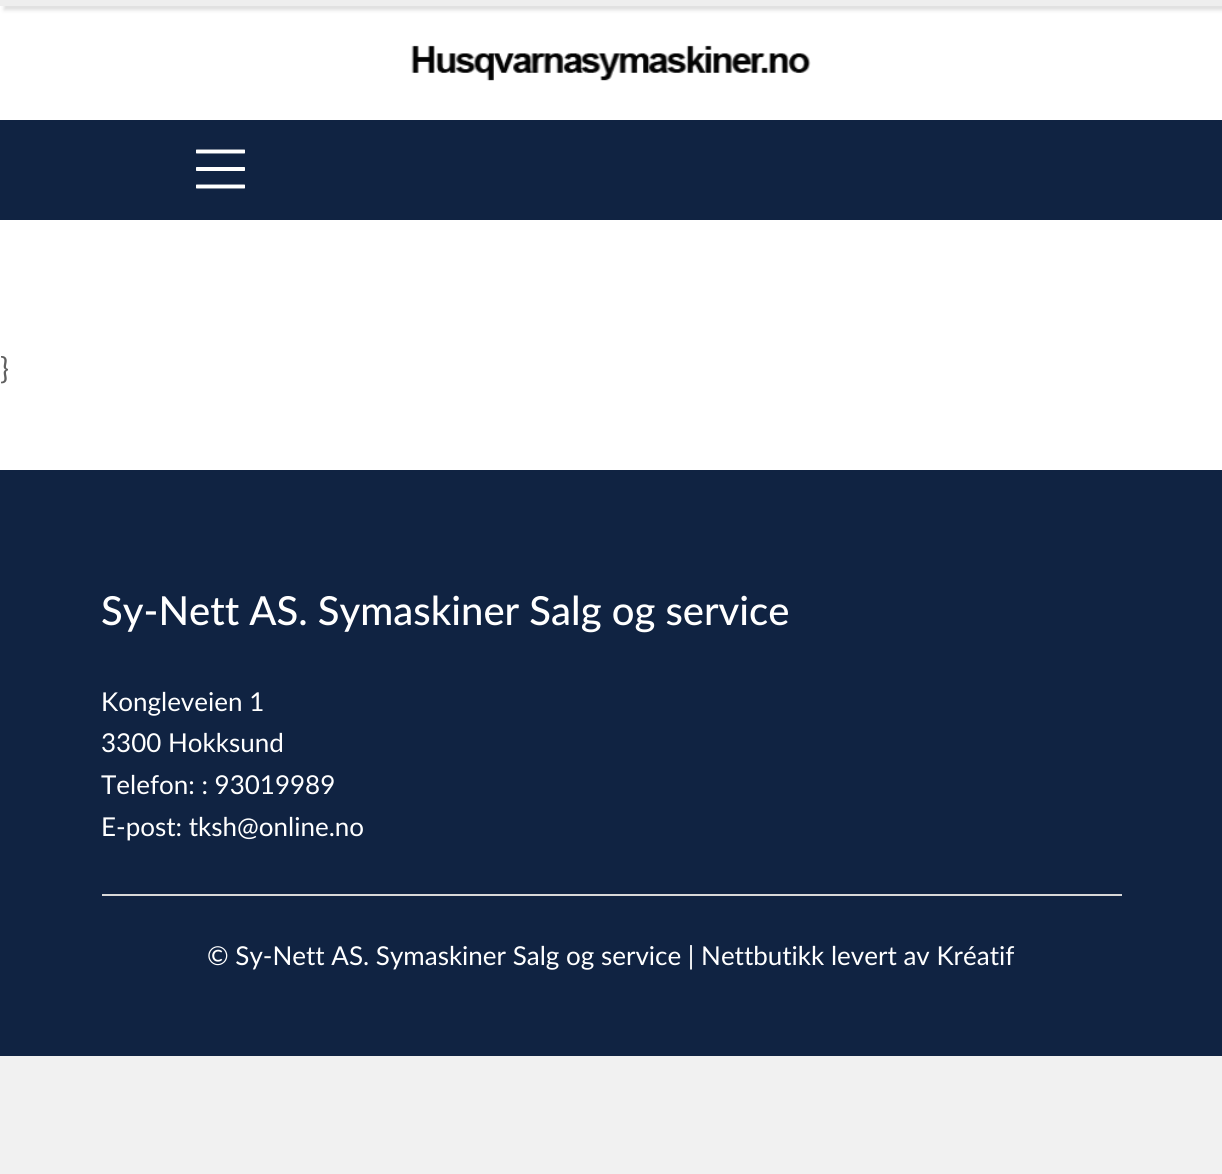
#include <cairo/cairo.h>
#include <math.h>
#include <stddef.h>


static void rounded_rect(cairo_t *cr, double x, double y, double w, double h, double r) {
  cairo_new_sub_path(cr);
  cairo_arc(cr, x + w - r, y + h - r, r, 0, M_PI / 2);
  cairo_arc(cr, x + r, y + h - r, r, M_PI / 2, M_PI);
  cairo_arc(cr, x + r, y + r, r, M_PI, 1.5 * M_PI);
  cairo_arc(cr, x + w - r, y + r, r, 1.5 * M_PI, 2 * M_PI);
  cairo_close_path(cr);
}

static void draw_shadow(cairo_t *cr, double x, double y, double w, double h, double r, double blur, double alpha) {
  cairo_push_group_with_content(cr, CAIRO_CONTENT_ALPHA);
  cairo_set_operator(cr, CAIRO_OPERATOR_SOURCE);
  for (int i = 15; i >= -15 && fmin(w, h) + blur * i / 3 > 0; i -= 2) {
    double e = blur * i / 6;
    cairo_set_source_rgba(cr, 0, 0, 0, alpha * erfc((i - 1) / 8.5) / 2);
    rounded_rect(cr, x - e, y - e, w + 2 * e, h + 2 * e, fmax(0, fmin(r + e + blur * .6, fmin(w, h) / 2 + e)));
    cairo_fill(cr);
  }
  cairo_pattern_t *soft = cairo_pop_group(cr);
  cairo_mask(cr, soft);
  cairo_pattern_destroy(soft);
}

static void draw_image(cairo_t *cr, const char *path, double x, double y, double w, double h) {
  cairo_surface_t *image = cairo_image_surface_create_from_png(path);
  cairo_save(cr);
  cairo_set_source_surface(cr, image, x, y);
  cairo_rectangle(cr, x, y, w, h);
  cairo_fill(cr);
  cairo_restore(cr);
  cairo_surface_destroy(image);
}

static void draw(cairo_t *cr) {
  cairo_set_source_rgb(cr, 241 / 255.0, 241 / 255.0, 241 / 255.0);
  cairo_paint(cr);
  cairo_set_source_rgb(cr, 1, 1, 1);
  cairo_rectangle(cr, 0, 6, 1222, 464);
  cairo_fill(cr);
  cairo_set_source_rgb(cr, 221 / 255.0, 221 / 255.0, 221 / 255.0);
  draw_shadow(cr, 4, 4, 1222, 6, 0, 2, 1);
  cairo_set_source_rgb(cr, 238 / 255.0, 238 / 255.0, 238 / 255.0);
  cairo_rectangle(cr, 0, 0, 1222, 6);
  cairo_fill(cr);
  draw_image(cr, "images/1.png", 411, 45, 400, 36);
  cairo_set_source_rgb(cr, 16 / 255.0, 35 / 255.0, 66 / 255.0);
  cairo_rectangle(cr, 0, 120, 1222, 100);
  cairo_fill(cr);
  draw_image(cr, "images/2.png", 196, 149, 49, 40);
  cairo_rectangle(cr, 0, 470, 1222, 586);
  cairo_fill(cr);
  cairo_set_source_rgb(cr, 216 / 255.0, 216 / 255.0, 216 / 255.0);
  cairo_rectangle(cr, 102, 894, 1020, 2);
  cairo_fill(cr);
  cairo_select_font_face(cr, "Lato", CAIRO_FONT_SLANT_NORMAL, CAIRO_FONT_WEIGHT_NORMAL);
  cairo_set_font_size(cr, 30);
  cairo_set_source_rgb(cr, 96 / 255.0, 96 / 255.0, 96 / 255.0);
  cairo_move_to(cr, 0, 379);
  cairo_show_text(cr, "}");
  cairo_select_font_face(cr, "Lato Medium", CAIRO_FONT_SLANT_NORMAL, CAIRO_FONT_WEIGHT_NORMAL);
  cairo_set_font_size(cr, 40);
  cairo_set_source_rgb(cr, 1, 1, 1);
  cairo_move_to(cr, 101, 625);
  cairo_show_text(cr, "Sy-Nett AS. Symaskiner Salg og service");
  cairo_select_font_face(cr, "Lato", CAIRO_FONT_SLANT_NORMAL, CAIRO_FONT_WEIGHT_NORMAL);
  cairo_set_font_size(cr, 26);
  cairo_move_to(cr, 101, 711);
  cairo_show_text(cr, "Kongleveien 1");
  cairo_move_to(cr, 101, 752);
  cairo_show_text(cr, "3300 Hokksund");
  cairo_move_to(cr, 101, 794);
  cairo_show_text(cr, "Telefon: : 93019989");
  cairo_move_to(cr, 101, 836);
  cairo_show_text(cr, "E-post: tksh@online.no");
  cairo_move_to(cr, 207, 965);
  cairo_show_text(cr, "© Sy-Nett AS. Symaskiner Salg og service | Nettbutikk levert av Kréatif");
}

int main(void) {
  cairo_surface_t *surface = cairo_image_surface_create(CAIRO_FORMAT_RGB24, 1222, 1174);
  cairo_t *cr = cairo_create(surface);
  cairo_font_options_t *options = cairo_font_options_create();
  cairo_font_options_set_hint_metrics(options, CAIRO_HINT_METRICS_OFF);
  cairo_font_options_set_hint_style(options, CAIRO_HINT_STYLE_NONE);
  cairo_set_font_options(cr, options);
  cairo_set_miter_limit(cr, 4);
  draw(cr);
  cairo_surface_write_to_png(surface, "out.png");
  cairo_font_options_destroy(options);
  cairo_destroy(cr);
  cairo_surface_destroy(surface);
  return 0;
}
